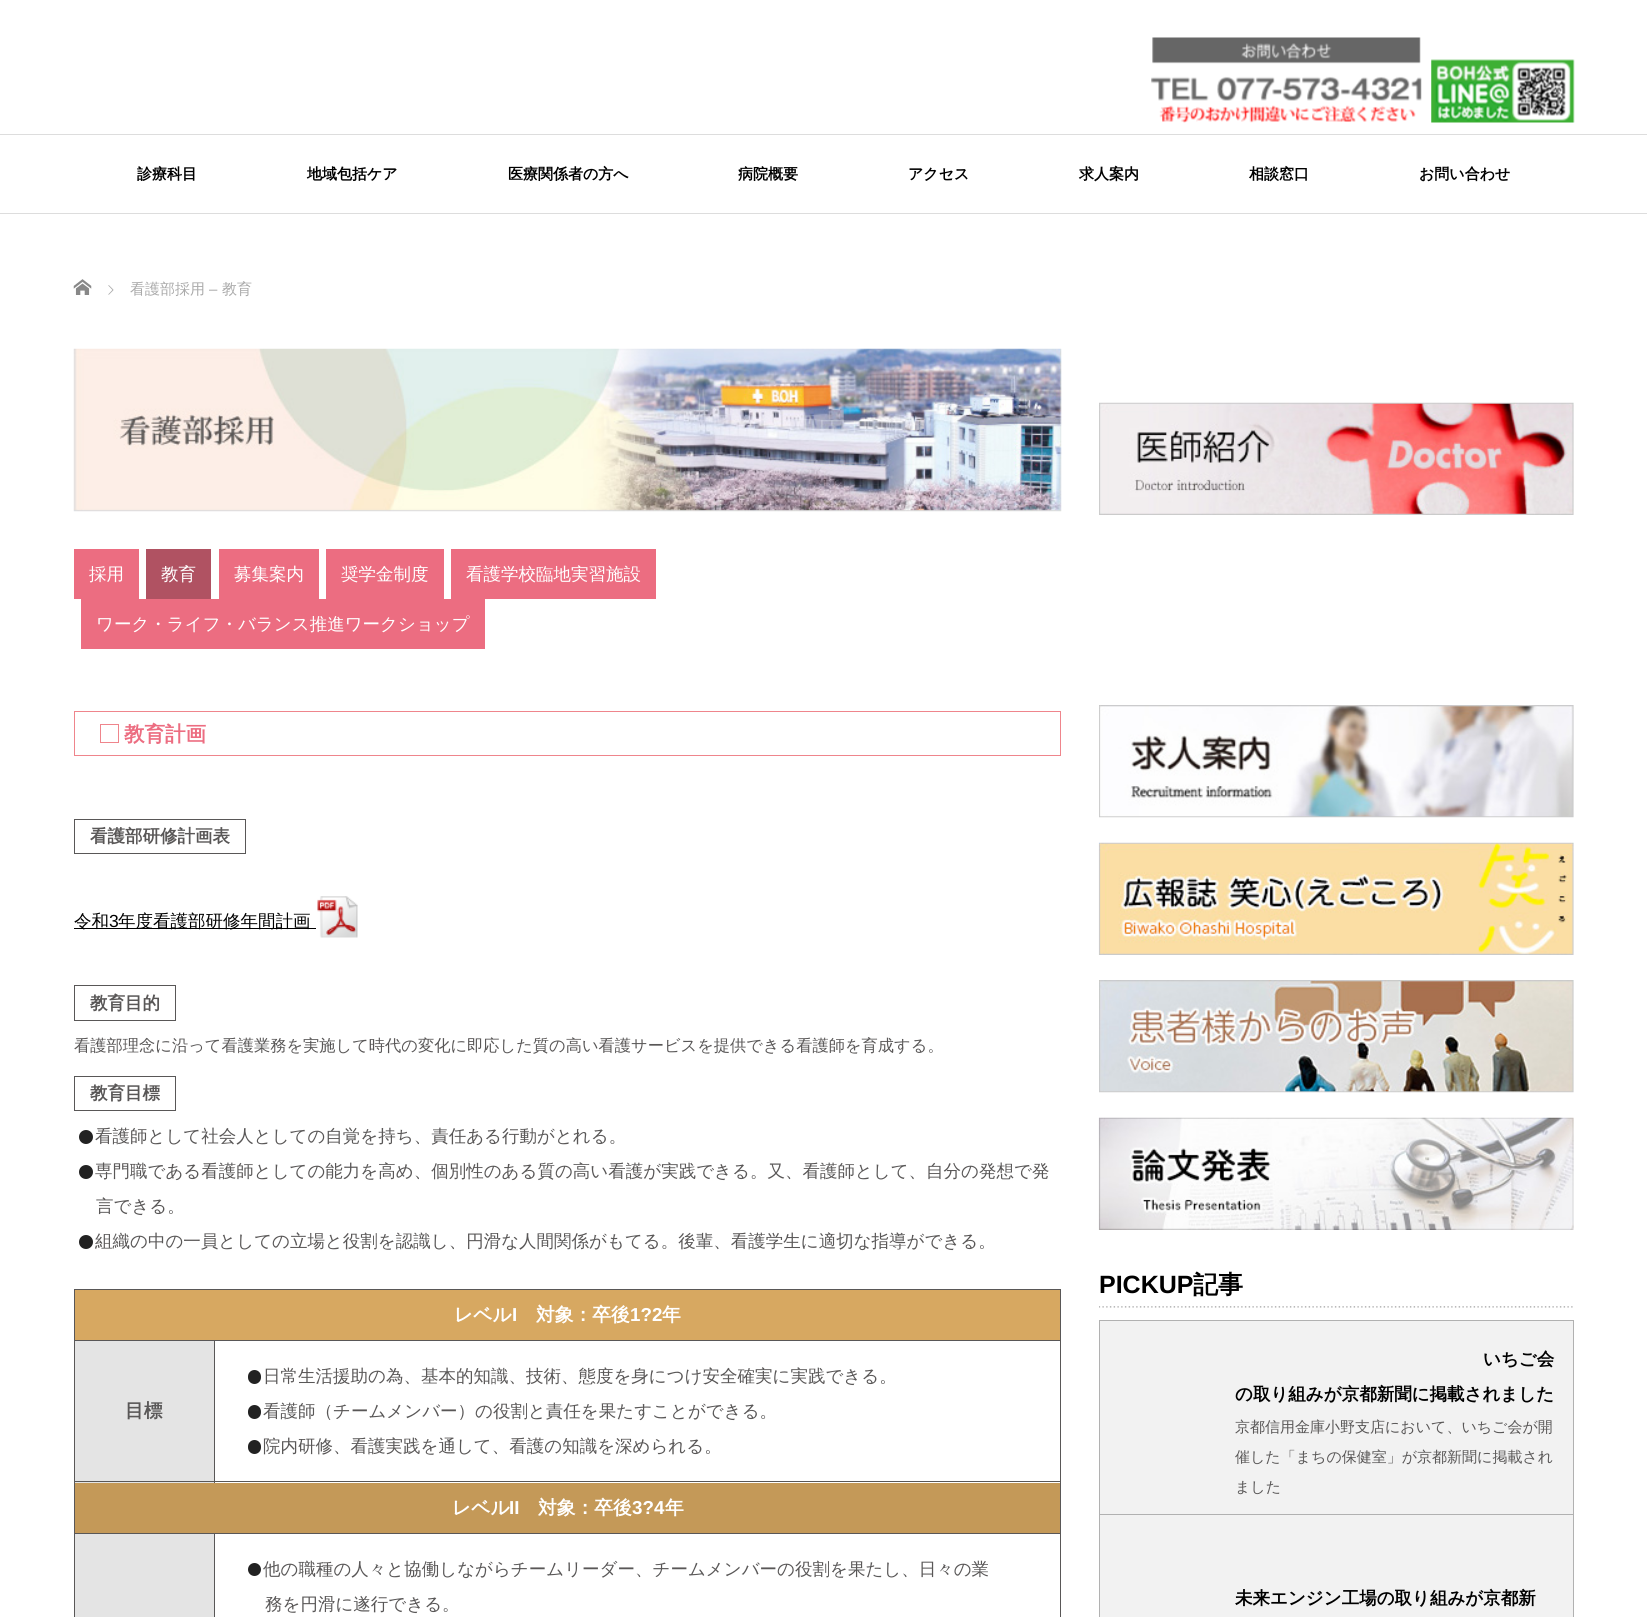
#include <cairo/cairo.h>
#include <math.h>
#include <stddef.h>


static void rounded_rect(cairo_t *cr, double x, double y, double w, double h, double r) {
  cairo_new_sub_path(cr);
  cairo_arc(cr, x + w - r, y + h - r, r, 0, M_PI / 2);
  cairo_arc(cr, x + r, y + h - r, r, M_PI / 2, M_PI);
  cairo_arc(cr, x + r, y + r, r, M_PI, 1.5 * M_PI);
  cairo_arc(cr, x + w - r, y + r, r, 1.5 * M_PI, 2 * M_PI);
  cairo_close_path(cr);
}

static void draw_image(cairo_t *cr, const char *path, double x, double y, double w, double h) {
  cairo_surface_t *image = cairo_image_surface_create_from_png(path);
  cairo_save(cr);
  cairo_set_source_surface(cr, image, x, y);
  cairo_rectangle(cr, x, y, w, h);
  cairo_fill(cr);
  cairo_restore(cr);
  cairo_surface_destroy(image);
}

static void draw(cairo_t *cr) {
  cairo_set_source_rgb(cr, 1, 1, 1);
  cairo_paint(cr);
  cairo_set_source_rgb(cr, 221 / 255.0, 221 / 255.0, 221 / 255.0);
  cairo_rectangle(cr, 0, 213, 1647, 1);
  cairo_fill(cr);
  draw_image(cr, "images/1.png", 1151, 37, 271, 86);
  draw_image(cr, "images/2.png", 1431, 59, 144, 64);
  cairo_rectangle(cr, 0, 134, 1647, 1);
  cairo_fill(cr);
  draw_image(cr, "images/3.png", 73, 279, 19, 16);
  draw_image(cr, "images/4.png", 108, 285, 6, 10);
  draw_image(cr, "images/5.png", 73, 348, 989, 164);
  cairo_set_source_rgb(cr, 236 / 255.0, 109 / 255.0, 129 / 255.0);
  cairo_rectangle(cr, 74, 549, 65, 50);
  cairo_fill(cr);
  cairo_set_source_rgb(cr, 176 / 255.0, 82 / 255.0, 98 / 255.0);
  cairo_rectangle(cr, 146, 549, 65, 50);
  cairo_fill(cr);
  cairo_set_source_rgb(cr, 236 / 255.0, 109 / 255.0, 129 / 255.0);
  cairo_rectangle(cr, 219, 549, 100, 50);
  cairo_fill(cr);
  cairo_rectangle(cr, 326, 549, 118, 50);
  cairo_fill(cr);
  cairo_rectangle(cr, 451, 549, 205, 50);
  cairo_fill(cr);
  cairo_rectangle(cr, 81, 599, 404, 50);
  cairo_fill(cr);
  cairo_rectangle(cr, 74.5, 711.5, 986, 44);
  cairo_set_source_rgb(cr, 239 / 255.0, 133 / 255.0, 140 / 255.0);
  cairo_set_line_width(cr, 1);
  cairo_stroke(cr);
  cairo_rectangle(cr, 100.5, 724.5, 18, 18);
  cairo_stroke(cr);
  cairo_rectangle(cr, 74.5, 819.5, 171, 34);
  cairo_set_source_rgb(cr, 89 / 255.0, 87 / 255.0, 87 / 255.0);
  cairo_stroke(cr);
  cairo_set_source_rgb(cr, 0, 0, 0);
  cairo_rectangle(cr, 74, 928, 242, 1);
  cairo_fill(cr);
  draw_image(cr, "images/6.png", 317, 896, 41, 42);
  cairo_rectangle(cr, 74.5, 985.5, 101, 35);
  cairo_set_source_rgb(cr, 89 / 255.0, 87 / 255.0, 87 / 255.0);
  cairo_stroke(cr);
  cairo_rectangle(cr, 74.5, 1076.5, 101, 34);
  cairo_stroke(cr);
  cairo_set_source_rgb(cr, 34 / 255.0, 34 / 255.0, 34 / 255.0);
  cairo_arc(cr, 86, 1137, 7, 0, 2 * M_PI);
  cairo_fill(cr);
  cairo_arc(cr, 86, 1172, 7, 0, 2 * M_PI);
  cairo_fill(cr);
  cairo_arc(cr, 86, 1242, 7, 0, 2 * M_PI);
  cairo_fill(cr);
  cairo_set_source_rgb(cr, 89 / 255.0, 87 / 255.0, 87 / 255.0);
  cairo_rectangle(cr, 74, 1289, 987, 1);
  cairo_fill(cr);
  cairo_rectangle(cr, 1060, 1289, 1, 328);
  cairo_fill(cr);
  cairo_rectangle(cr, 74, 1289, 1, 328);
  cairo_fill(cr);
  cairo_set_source_rgb(cr, 215 / 255.0, 168 / 255.0, 97 / 255.0);
  cairo_rectangle(cr, 75, 1290, 985, 50);
  cairo_fill(cr);
  cairo_set_source_rgb(cr, 89 / 255.0, 87 / 255.0, 87 / 255.0);
  cairo_rectangle(cr, 75, 1340, 985, 1);
  cairo_fill(cr);
  cairo_set_source_rgb(cr, 228 / 255.0, 228 / 255.0, 228 / 255.0);
  cairo_rectangle(cr, 75, 1341, 139, 142);
  cairo_fill(cr);
  cairo_set_source_rgb(cr, 89 / 255.0, 87 / 255.0, 87 / 255.0);
  cairo_rectangle(cr, 214, 1341, 1, 142);
  cairo_fill(cr);
  cairo_rectangle(cr, 75, 1481, 985, 1);
  cairo_fill(cr);
  cairo_set_source_rgb(cr, 34 / 255.0, 34 / 255.0, 34 / 255.0);
  rounded_rect(cr, 248, 1370, 13, 14, 6.5);
  cairo_fill(cr);
  rounded_rect(cr, 248, 1405, 13, 14, 6.5);
  cairo_fill(cr);
  rounded_rect(cr, 248, 1440, 13, 14, 6.5);
  cairo_fill(cr);
  cairo_set_source_rgb(cr, 196 / 255.0, 153 / 255.0, 88 / 255.0);
  cairo_rectangle(cr, 75, 1483, 985, 50);
  cairo_fill(cr);
  cairo_set_source_rgb(cr, 89 / 255.0, 87 / 255.0, 87 / 255.0);
  cairo_rectangle(cr, 75, 1533, 985, 1);
  cairo_fill(cr);
  cairo_set_source_rgb(cr, 228 / 255.0, 228 / 255.0, 228 / 255.0);
  cairo_rectangle(cr, 75, 1534, 139, 83);
  cairo_fill(cr);
  cairo_set_source_rgb(cr, 89 / 255.0, 87 / 255.0, 87 / 255.0);
  cairo_rectangle(cr, 214, 1534, 1, 83);
  cairo_fill(cr);
  cairo_set_source_rgb(cr, 34 / 255.0, 34 / 255.0, 34 / 255.0);
  cairo_arc(cr, 254.5, 1569.5, 6.5, 0, 2 * M_PI);
  cairo_fill(cr);
  draw_image(cr, "images/7.png", 1099, 402, 475, 113);
  draw_image(cr, "images/8.png", 1099, 705, 475, 113);
  draw_image(cr, "images/9.png", 1098, 842, 476, 113);
  draw_image(cr, "images/10.png", 1099, 980, 475, 113);
  draw_image(cr, "images/11.png", 1098, 1117, 476, 113);
  draw_image(cr, "images/12.png", 1099, 1306, 474, 2);
  cairo_set_source_rgb(cr, 242 / 255.0, 242 / 255.0, 242 / 255.0);
  cairo_rectangle(cr, 1099.5, 1320.5, 474, 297);
  cairo_fill_preserve(cr);
  cairo_set_source_rgb(cr, 177 / 255.0, 177 / 255.0, 177 / 255.0);
  cairo_stroke(cr);
  cairo_rectangle(cr, 1100, 1514, 473, 1);
  cairo_fill(cr);
  cairo_select_font_face(cr, "WenQuanYi Zen Hei", CAIRO_FONT_SLANT_NORMAL, CAIRO_FONT_WEIGHT_BOLD);
  cairo_set_font_size(cr, 15);
  cairo_set_source_rgb(cr, 0, 0, 0);
  cairo_move_to(cr, 137, 179);
  cairo_show_text(cr, "診療科目");
  cairo_move_to(cr, 307, 179);
  cairo_show_text(cr, "地域包括ケア");
  cairo_move_to(cr, 508, 179);
  cairo_show_text(cr, "医療関係者の方へ");
  cairo_move_to(cr, 738, 179);
  cairo_show_text(cr, "病院概要");
  cairo_move_to(cr, 908, 179);
  cairo_show_text(cr, "アクセス");
  cairo_move_to(cr, 1079, 179);
  cairo_show_text(cr, "求人案内");
  cairo_move_to(cr, 1249, 179);
  cairo_show_text(cr, "相談窓口");
  cairo_move_to(cr, 1419, 179);
  cairo_show_text(cr, "お問い合わせ");
  cairo_select_font_face(cr, "WenQuanYi Zen Hei Medium", CAIRO_FONT_SLANT_NORMAL, CAIRO_FONT_WEIGHT_NORMAL);
  cairo_set_source_rgb(cr, 170 / 255.0, 170 / 255.0, 170 / 255.0);
  cairo_move_to(cr, 130, 294);
  cairo_show_text(cr, "看護部採用");
  cairo_select_font_face(cr, "Liberation Sans", CAIRO_FONT_SLANT_NORMAL, CAIRO_FONT_WEIGHT_NORMAL);
  cairo_move_to(cr, 209, 294);
  cairo_show_text(cr, "–");
  cairo_select_font_face(cr, "WenQuanYi Zen Hei Medium", CAIRO_FONT_SLANT_NORMAL, CAIRO_FONT_WEIGHT_NORMAL);
  cairo_move_to(cr, 222, 294);
  cairo_show_text(cr, "教育");
  cairo_set_font_size(cr, 17.5);
  cairo_set_source_rgb(cr, 1, 1, 1);
  cairo_move_to(cr, 89, 580);
  cairo_show_text(cr, "採用");
  cairo_move_to(cr, 161, 580);
  cairo_show_text(cr, "教育");
  cairo_move_to(cr, 234, 580);
  cairo_show_text(cr, "募集案内");
  cairo_move_to(cr, 341, 580);
  cairo_show_text(cr, "奨学金制度");
  cairo_move_to(cr, 466, 580);
  cairo_show_text(cr, "看護学校臨地実習施設");
  cairo_move_to(cr, 96, 630);
  cairo_show_text(cr, "ワーク・ライフ・バランス推進ワークショップ");
  cairo_select_font_face(cr, "WenQuanYi Zen Hei", CAIRO_FONT_SLANT_NORMAL, CAIRO_FONT_WEIGHT_BOLD);
  cairo_set_font_size(cr, 20.5);
  cairo_set_source_rgb(cr, 236 / 255.0, 109 / 255.0, 129 / 255.0);
  cairo_move_to(cr, 124, 741);
  cairo_show_text(cr, "教育計画");
  cairo_set_font_size(cr, 17.5);
  cairo_set_source_rgb(cr, 89 / 255.0, 87 / 255.0, 87 / 255.0);
  cairo_move_to(cr, 90, 842);
  cairo_show_text(cr, "看護部研修計画表");
  cairo_select_font_face(cr, "WenQuanYi Zen Hei Medium", CAIRO_FONT_SLANT_NORMAL, CAIRO_FONT_WEIGHT_NORMAL);
  cairo_set_source_rgb(cr, 0, 0, 0);
  cairo_move_to(cr, 74, 927);
  cairo_show_text(cr, "令和");
  cairo_select_font_face(cr, "Liberation Sans", CAIRO_FONT_SLANT_NORMAL, CAIRO_FONT_WEIGHT_NORMAL);
  cairo_move_to(cr, 109, 927);
  cairo_show_text(cr, "3");
  cairo_select_font_face(cr, "WenQuanYi Zen Hei Medium", CAIRO_FONT_SLANT_NORMAL, CAIRO_FONT_WEIGHT_NORMAL);
  cairo_move_to(cr, 118, 927);
  cairo_show_text(cr, "年度看護部研修年間計画");
  cairo_select_font_face(cr, "WenQuanYi Zen Hei", CAIRO_FONT_SLANT_NORMAL, CAIRO_FONT_WEIGHT_BOLD);
  cairo_set_source_rgb(cr, 89 / 255.0, 87 / 255.0, 87 / 255.0);
  cairo_move_to(cr, 90, 1009);
  cairo_show_text(cr, "教育目的");
  cairo_select_font_face(cr, "WenQuanYi Zen Hei Medium", CAIRO_FONT_SLANT_NORMAL, CAIRO_FONT_WEIGHT_NORMAL);
  cairo_set_font_size(cr, 16.25);
  cairo_move_to(cr, 74, 1051);
  cairo_show_text(cr, "看護部理念に沿って看護業務を実施して時代の変化に即応した質の高い看護サービスを提供できる看護師を育成する。");
  cairo_select_font_face(cr, "WenQuanYi Zen Hei", CAIRO_FONT_SLANT_NORMAL, CAIRO_FONT_WEIGHT_BOLD);
  cairo_set_font_size(cr, 17.5);
  cairo_move_to(cr, 90, 1099);
  cairo_show_text(cr, "教育目標");
  cairo_select_font_face(cr, "WenQuanYi Zen Hei Medium", CAIRO_FONT_SLANT_NORMAL, CAIRO_FONT_WEIGHT_NORMAL);
  cairo_move_to(cr, 95, 1142);
  cairo_show_text(cr, "看護師として社会人としての自覚を持ち、責任ある行動がとれる。");
  cairo_move_to(cr, 95, 1177);
  cairo_show_text(cr, "専門職である看護師としての能力を高め、個別性のある質の高い看護が実践できる。又、看護師として、自分の発想で発");
  cairo_move_to(cr, 96, 1212);
  cairo_show_text(cr, "言できる。");
  cairo_move_to(cr, 95, 1247);
  cairo_show_text(cr, "組織の中の一員としての立場と役割を認識し、円滑な人間関係がもてる。後輩、看護学生に適切な指導ができる。");
  cairo_select_font_face(cr, "WenQuanYi Zen Hei", CAIRO_FONT_SLANT_NORMAL, CAIRO_FONT_WEIGHT_BOLD);
  cairo_set_font_size(cr, 18.75);
  cairo_set_source_rgb(cr, 1, 1, 1);
  cairo_move_to(cr, 454, 1321);
  cairo_show_text(cr, "レベル");
  cairo_select_font_face(cr, "Liberation Sans", CAIRO_FONT_SLANT_NORMAL, CAIRO_FONT_WEIGHT_BOLD);
  cairo_move_to(cr, 512, 1321);
  cairo_show_text(cr, "I");
  cairo_select_font_face(cr, "WenQuanYi Zen Hei", CAIRO_FONT_SLANT_NORMAL, CAIRO_FONT_WEIGHT_BOLD);
  cairo_move_to(cr, 536, 1321);
  cairo_show_text(cr, "対象：卒後");
  cairo_select_font_face(cr, "Liberation Sans", CAIRO_FONT_SLANT_NORMAL, CAIRO_FONT_WEIGHT_BOLD);
  cairo_move_to(cr, 630, 1321);
  cairo_show_text(cr, "1?2");
  cairo_select_font_face(cr, "WenQuanYi Zen Hei", CAIRO_FONT_SLANT_NORMAL, CAIRO_FONT_WEIGHT_BOLD);
  cairo_move_to(cr, 662, 1321);
  cairo_show_text(cr, "年");
  cairo_set_source_rgb(cr, 89 / 255.0, 87 / 255.0, 87 / 255.0);
  cairo_move_to(cr, 125, 1417);
  cairo_show_text(cr, "目標");
  cairo_select_font_face(cr, "WenQuanYi Zen Hei Medium", CAIRO_FONT_SLANT_NORMAL, CAIRO_FONT_WEIGHT_NORMAL);
  cairo_set_font_size(cr, 17.5);
  cairo_move_to(cr, 263, 1382);
  cairo_show_text(cr, "日常生活援助の為、基本的知識、技術、態度を身につけ安全確実に実践できる。");
  cairo_move_to(cr, 263, 1417);
  cairo_show_text(cr, "看護師（チームメンバー）の役割と責任を果たすことができる。");
  cairo_move_to(cr, 263, 1452);
  cairo_show_text(cr, "院内研修、看護実践を通して、看護の知識を深められる。");
  cairo_select_font_face(cr, "WenQuanYi Zen Hei", CAIRO_FONT_SLANT_NORMAL, CAIRO_FONT_WEIGHT_BOLD);
  cairo_set_font_size(cr, 18.75);
  cairo_set_source_rgb(cr, 1, 1, 1);
  cairo_move_to(cr, 452, 1514);
  cairo_show_text(cr, "レベル");
  cairo_select_font_face(cr, "Liberation Sans", CAIRO_FONT_SLANT_NORMAL, CAIRO_FONT_WEIGHT_BOLD);
  cairo_move_to(cr, 509, 1514);
  cairo_show_text(cr, "II");
  cairo_select_font_face(cr, "WenQuanYi Zen Hei", CAIRO_FONT_SLANT_NORMAL, CAIRO_FONT_WEIGHT_BOLD);
  cairo_move_to(cr, 538, 1514);
  cairo_show_text(cr, "対象：卒後");
  cairo_select_font_face(cr, "Liberation Sans", CAIRO_FONT_SLANT_NORMAL, CAIRO_FONT_WEIGHT_BOLD);
  cairo_move_to(cr, 632, 1514);
  cairo_show_text(cr, "3?4");
  cairo_select_font_face(cr, "WenQuanYi Zen Hei", CAIRO_FONT_SLANT_NORMAL, CAIRO_FONT_WEIGHT_BOLD);
  cairo_move_to(cr, 665, 1514);
  cairo_show_text(cr, "年");
  cairo_select_font_face(cr, "WenQuanYi Zen Hei Medium", CAIRO_FONT_SLANT_NORMAL, CAIRO_FONT_WEIGHT_NORMAL);
  cairo_set_font_size(cr, 17.5);
  cairo_set_source_rgb(cr, 89 / 255.0, 87 / 255.0, 87 / 255.0);
  cairo_move_to(cr, 263, 1575);
  cairo_show_text(cr, "他の職種の人々と協働しながらチームリーダー、チームメンバーの役割を果たし、日々の業");
  cairo_move_to(cr, 265, 1610);
  cairo_show_text(cr, "務を円滑に遂行できる。");
  cairo_select_font_face(cr, "Liberation Sans", CAIRO_FONT_SLANT_NORMAL, CAIRO_FONT_WEIGHT_BOLD);
  cairo_set_font_size(cr, 25);
  cairo_set_source_rgb(cr, 0, 0, 0);
  cairo_move_to(cr, 1099, 1293);
  cairo_show_text(cr, "PICKUP");
  cairo_select_font_face(cr, "WenQuanYi Zen Hei", CAIRO_FONT_SLANT_NORMAL, CAIRO_FONT_WEIGHT_BOLD);
  cairo_move_to(cr, 1193, 1293);
  cairo_show_text(cr, "記事");
  cairo_set_font_size(cr, 17.5);
  cairo_move_to(cr, 1483, 1365);
  cairo_show_text(cr, "いちご会");
  cairo_move_to(cr, 1235, 1400);
  cairo_show_text(cr, "の取り組みが京都新聞に掲載されました");
  cairo_select_font_face(cr, "WenQuanYi Zen Hei Medium", CAIRO_FONT_SLANT_NORMAL, CAIRO_FONT_WEIGHT_NORMAL);
  cairo_set_font_size(cr, 15);
  cairo_set_source_rgb(cr, 89 / 255.0, 87 / 255.0, 87 / 255.0);
  cairo_move_to(cr, 1235, 1432);
  cairo_show_text(cr, "京都信用金庫小野支店において、いちご会が開");
  cairo_move_to(cr, 1235, 1462);
  cairo_show_text(cr, "催した「まちの保健室」が京都新聞に掲載され");
  cairo_move_to(cr, 1235, 1492);
  cairo_show_text(cr, "ました");
  cairo_select_font_face(cr, "WenQuanYi Zen Hei", CAIRO_FONT_SLANT_NORMAL, CAIRO_FONT_WEIGHT_BOLD);
  cairo_set_font_size(cr, 17.5);
  cairo_set_source_rgb(cr, 0, 0, 0);
  cairo_move_to(cr, 1235, 1604);
  cairo_show_text(cr, "未来エンジン工場の取り組みが京都新");
}

int main(void) {
  cairo_surface_t *surface = cairo_image_surface_create(CAIRO_FORMAT_RGB24, 1647, 1617);
  cairo_t *cr = cairo_create(surface);
  cairo_font_options_t *options = cairo_font_options_create();
  cairo_font_options_set_hint_metrics(options, CAIRO_HINT_METRICS_OFF);
  cairo_font_options_set_hint_style(options, CAIRO_HINT_STYLE_NONE);
  cairo_set_font_options(cr, options);
  cairo_set_miter_limit(cr, 4);
  draw(cr);
  cairo_surface_write_to_png(surface, "out.png");
  cairo_font_options_destroy(options);
  cairo_destroy(cr);
  cairo_surface_destroy(surface);
  return 0;
}
